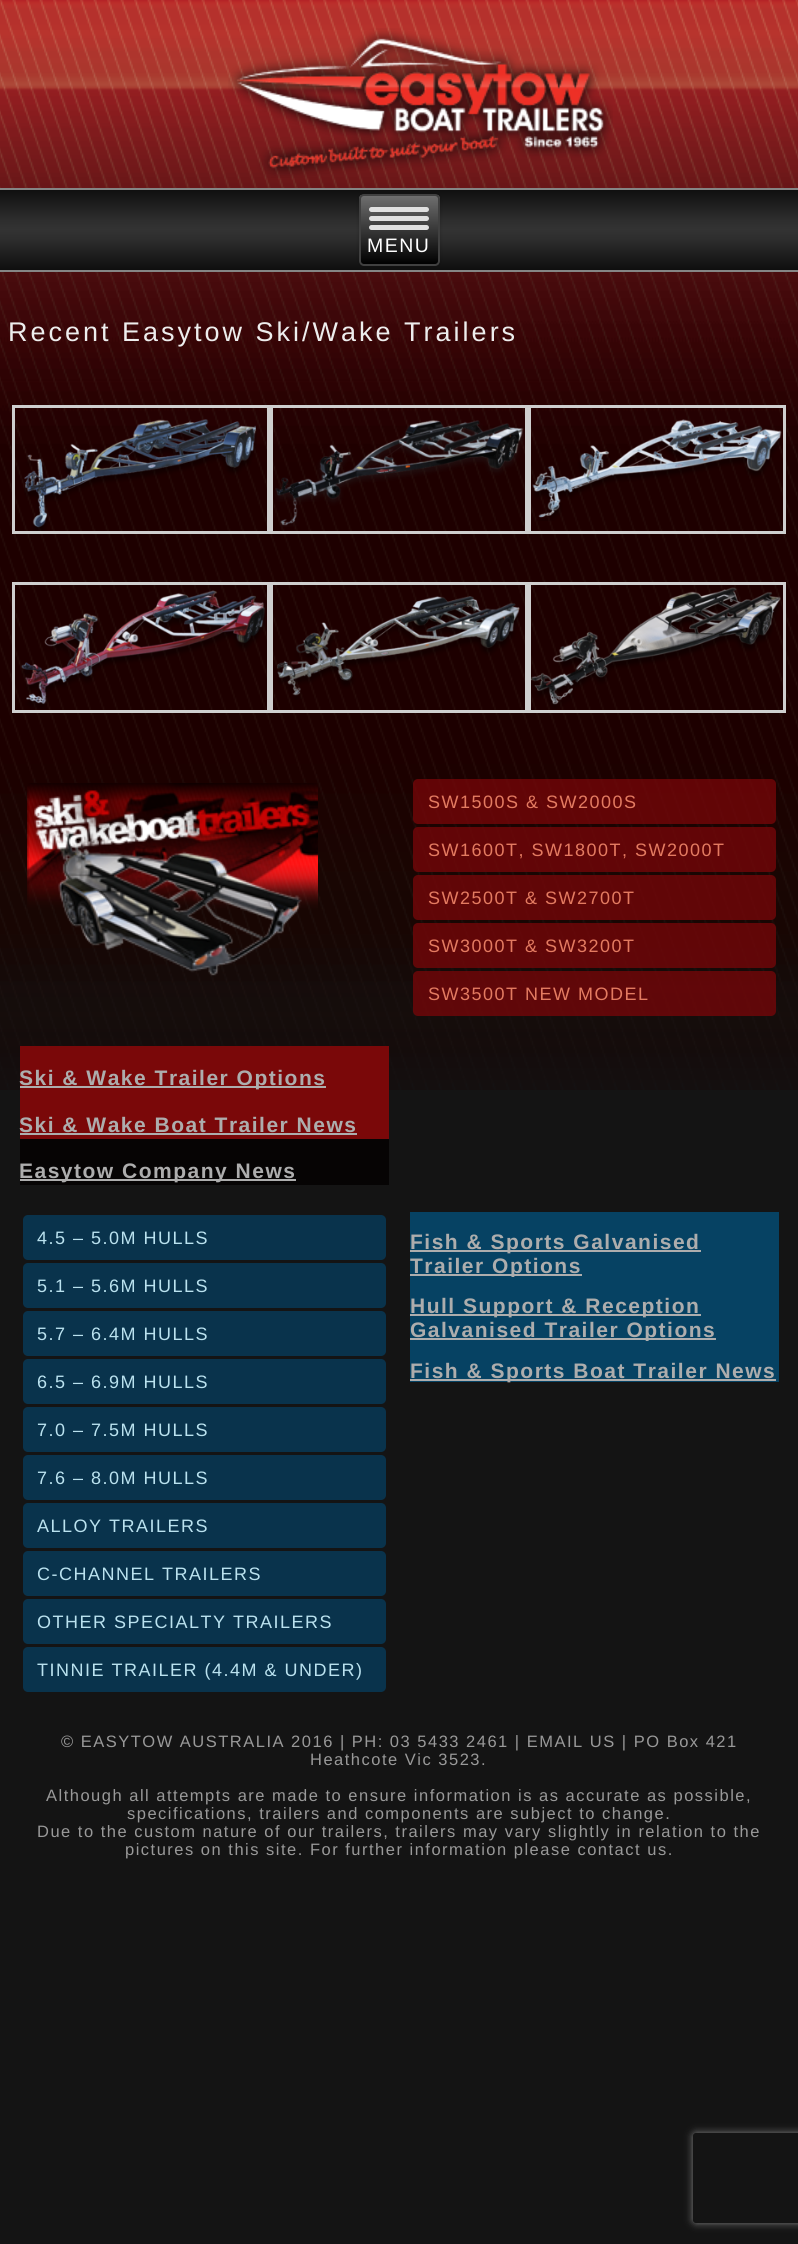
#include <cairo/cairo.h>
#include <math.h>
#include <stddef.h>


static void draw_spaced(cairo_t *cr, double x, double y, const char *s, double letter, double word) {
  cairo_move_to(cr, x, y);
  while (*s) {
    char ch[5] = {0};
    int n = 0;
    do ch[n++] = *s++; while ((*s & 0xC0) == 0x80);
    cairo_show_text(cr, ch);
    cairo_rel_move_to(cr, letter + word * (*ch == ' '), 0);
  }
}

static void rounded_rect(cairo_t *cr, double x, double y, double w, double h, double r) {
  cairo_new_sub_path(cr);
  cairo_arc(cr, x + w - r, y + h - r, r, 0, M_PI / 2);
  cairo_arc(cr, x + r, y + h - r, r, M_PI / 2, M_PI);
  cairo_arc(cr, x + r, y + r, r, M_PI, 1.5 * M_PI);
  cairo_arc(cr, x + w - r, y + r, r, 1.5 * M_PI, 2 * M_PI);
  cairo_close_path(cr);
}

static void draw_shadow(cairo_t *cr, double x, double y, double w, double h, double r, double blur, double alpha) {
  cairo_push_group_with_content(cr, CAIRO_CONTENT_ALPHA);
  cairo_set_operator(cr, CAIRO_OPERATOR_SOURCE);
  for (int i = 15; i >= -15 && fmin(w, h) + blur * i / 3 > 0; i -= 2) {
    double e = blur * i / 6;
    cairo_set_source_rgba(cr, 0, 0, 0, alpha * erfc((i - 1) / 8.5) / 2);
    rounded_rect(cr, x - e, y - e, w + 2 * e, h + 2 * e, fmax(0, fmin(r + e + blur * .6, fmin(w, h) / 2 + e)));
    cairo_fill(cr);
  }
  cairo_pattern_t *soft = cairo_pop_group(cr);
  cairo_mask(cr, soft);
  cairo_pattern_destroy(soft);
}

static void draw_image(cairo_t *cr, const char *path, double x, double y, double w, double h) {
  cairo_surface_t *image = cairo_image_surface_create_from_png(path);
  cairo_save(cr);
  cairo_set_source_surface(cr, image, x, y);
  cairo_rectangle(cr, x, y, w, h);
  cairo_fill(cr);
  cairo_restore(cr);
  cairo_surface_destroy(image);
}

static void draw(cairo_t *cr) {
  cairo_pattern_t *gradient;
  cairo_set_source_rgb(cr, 20 / 255.0, 20 / 255.0, 20 / 255.0);
  cairo_paint(cr);
  draw_image(cr, "images/1.png", 0, 0, 798, 1090);
  gradient = cairo_pattern_create_linear(399, 187, 399, 272);
  cairo_pattern_add_color_stop_rgba(gradient, 0, 13 / 255.0, 13 / 255.0, 13 / 255.0, 1);
  cairo_pattern_add_color_stop_rgba(gradient, 0.4, 46 / 255.0, 46 / 255.0, 46 / 255.0, 1);
  cairo_pattern_add_color_stop_rgba(gradient, 0.5, 51 / 255.0, 51 / 255.0, 51 / 255.0, 1);
  cairo_pattern_add_color_stop_rgba(gradient, 0.6, 46 / 255.0, 46 / 255.0, 46 / 255.0, 1);
  cairo_pattern_add_color_stop_rgba(gradient, 1, 13 / 255.0, 13 / 255.0, 13 / 255.0, 1);
  cairo_set_source(cr, gradient);
  cairo_pattern_destroy(gradient);
  cairo_rectangle(cr, 0, 190, 798, 80);
  cairo_fill(cr);
  cairo_set_source_rgb(cr, 133 / 255.0, 133 / 255.0, 133 / 255.0);
  cairo_rectangle(cr, 0, 188, 798, 2);
  cairo_fill(cr);
  cairo_rectangle(cr, 0, 270, 798, 2);
  cairo_fill(cr);
  draw_image(cr, "images/2.png", 228, 28, 385, 150);
  cairo_set_source_rgb(cr, 0, 0, 0);
  draw_shadow(cr, 359, 194, 81, 72, 5, 2, 0.2);
  cairo_save(cr);
  rounded_rect(cr, 359, 194, 81, 72, 5);
  cairo_clip(cr);
  gradient = cairo_pattern_create_linear(399, 195, 399, 264);
  cairo_pattern_add_color_stop_rgba(gradient, 0, 112 / 255.0, 112 / 255.0, 112 / 255.0, 1);
  cairo_pattern_add_color_stop_rgba(gradient, 1, 0, 0, 0, 1);
  cairo_set_source(cr, gradient);
  cairo_pattern_destroy(gradient);
  cairo_rectangle(cr, 359, 195, 81, 69);
  cairo_fill(cr);
  cairo_restore(cr);
  rounded_rect(cr, 360, 195, 79, 70, 4);
  cairo_set_source_rgb(cr, 64 / 255.0, 64 / 255.0, 64 / 255.0);
  cairo_stroke(cr);
  cairo_set_source_rgb(cr, 224 / 255.0, 224 / 255.0, 224 / 255.0);
  rounded_rect(cr, 369, 207, 60, 5, 2.5);
  cairo_fill(cr);
  rounded_rect(cr, 369, 216, 60, 5, 2.5);
  cairo_fill(cr);
  rounded_rect(cr, 369, 225, 60, 5, 2.5);
  cairo_fill(cr);
  cairo_rectangle(cr, 13.5, 406.5, 255, 126);
  cairo_set_source_rgb(cr, 207 / 255.0, 207 / 255.0, 207 / 255.0);
  cairo_set_line_width(cr, 3);
  cairo_stroke(cr);
  draw_image(cr, "images/3.png", 24, 419, 233, 112);
  cairo_rectangle(cr, 271.5, 406.5, 255, 126);
  cairo_stroke(cr);
  draw_image(cr, "images/4.png", 275, 420, 249, 107);
  cairo_rectangle(cr, 529.5, 406.5, 255, 126);
  cairo_stroke(cr);
  draw_image(cr, "images/5.png", 532, 419, 250, 102);
  cairo_rectangle(cr, 13.5, 583.5, 255, 128);
  cairo_stroke(cr);
  draw_image(cr, "images/6.png", 21, 590, 244, 119);
  cairo_rectangle(cr, 271.5, 583.5, 255, 128);
  cairo_stroke(cr);
  draw_image(cr, "images/7.png", 277, 596, 243, 104);
  cairo_rectangle(cr, 529.5, 583.5, 255, 128);
  cairo_stroke(cr);
  draw_image(cr, "images/8.png", 531, 587, 250, 122);
  draw_image(cr, "images/9.png", 27, 783, 291, 193);
  cairo_set_source_rgba(cr, 122 / 255.0, 6 / 255.0, 8 / 255.0, 0.75);
  rounded_rect(cr, 413, 779, 363, 45, 5);
  cairo_fill(cr);
  rounded_rect(cr, 413, 827, 363, 45, 5);
  cairo_fill(cr);
  rounded_rect(cr, 413, 875, 363, 45, 5);
  cairo_fill(cr);
  rounded_rect(cr, 413, 923, 363, 45, 5);
  cairo_fill(cr);
  rounded_rect(cr, 413, 971, 363, 45, 5);
  cairo_fill(cr);
  cairo_set_source_rgb(cr, 122 / 255.0, 8 / 255.0, 9 / 255.0);
  cairo_rectangle(cr, 20, 1046, 369, 93);
  cairo_fill(cr);
  cairo_set_source_rgb(cr, 173 / 255.0, 173 / 255.0, 173 / 255.0);
  cairo_rectangle(cr, 20, 1086, 306, 2);
  cairo_fill(cr);
  cairo_rectangle(cr, 20, 1133, 337, 2);
  cairo_fill(cr);
  cairo_set_source_rgb(cr, 6 / 255.0, 4 / 255.0, 4 / 255.0);
  cairo_rectangle(cr, 20, 1139, 369, 46);
  cairo_fill(cr);
  cairo_set_source_rgb(cr, 173 / 255.0, 173 / 255.0, 173 / 255.0);
  cairo_rectangle(cr, 20, 1179, 276, 2);
  cairo_fill(cr);
  cairo_set_source_rgb(cr, 9 / 255.0, 51 / 255.0, 76 / 255.0);
  rounded_rect(cr, 23, 1215, 363, 45, 5);
  cairo_fill(cr);
  rounded_rect(cr, 23, 1263, 363, 45, 5);
  cairo_fill(cr);
  rounded_rect(cr, 23, 1311, 363, 45, 5);
  cairo_fill(cr);
  rounded_rect(cr, 23, 1359, 363, 45, 5);
  cairo_fill(cr);
  rounded_rect(cr, 23, 1407, 363, 45, 5);
  cairo_fill(cr);
  rounded_rect(cr, 23, 1455, 363, 45, 5);
  cairo_fill(cr);
  rounded_rect(cr, 23, 1503, 363, 45, 5);
  cairo_fill(cr);
  rounded_rect(cr, 23, 1551, 363, 45, 5);
  cairo_fill(cr);
  rounded_rect(cr, 23, 1599, 363, 45, 5);
  cairo_fill(cr);
  rounded_rect(cr, 23, 1647, 363, 45, 5);
  cairo_fill(cr);
  cairo_set_source_rgb(cr, 6 / 255.0, 66 / 255.0, 99 / 255.0);
  cairo_rectangle(cr, 410, 1212, 369, 65);
  cairo_fill(cr);
  cairo_set_source_rgb(cr, 173 / 255.0, 173 / 255.0, 173 / 255.0);
  cairo_rectangle(cr, 410, 1250, 291, 2);
  cairo_fill(cr);
  cairo_rectangle(cr, 410, 1274, 172, 2);
  cairo_fill(cr);
  cairo_save(cr);
  cairo_set_fill_rule(cr, CAIRO_FILL_RULE_EVEN_ODD);
  cairo_new_path(cr);
  cairo_move_to(cr, 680, 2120);
  cairo_line_to(cr, 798, 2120);
  cairo_line_to(cr, 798, 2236);
  cairo_line_to(cr, 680, 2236);
  cairo_close_path(cr);
  cairo_move_to(cr, 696, 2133);
  cairo_line_to(cr, 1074, 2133);
  cairo_curve_to(cr, 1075.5, 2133, 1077, 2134.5, 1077, 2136);
  cairo_line_to(cr, 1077, 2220);
  cairo_curve_to(cr, 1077, 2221.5, 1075.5, 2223, 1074, 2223);
  cairo_line_to(cr, 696, 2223);
  cairo_curve_to(cr, 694.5, 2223, 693, 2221.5, 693, 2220);
  cairo_line_to(cr, 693, 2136);
  cairo_curve_to(cr, 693, 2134.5, 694.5, 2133, 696, 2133);
  cairo_close_path(cr);
  cairo_clip(cr);
  cairo_set_source_rgb(cr, 128 / 255.0, 128 / 255.0, 128 / 255.0);
  draw_shadow(cr, 693, 2133, 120, 90, 3, 4, 1);
  cairo_restore(cr);
  cairo_select_font_face(cr, "Liberation Sans", CAIRO_FONT_SLANT_NORMAL, CAIRO_FONT_WEIGHT_NORMAL);
  cairo_set_font_size(cr, 19.5);
  cairo_set_source_rgb(cr, 1, 1, 1);
  draw_spaced(cr, 367, 252, "MENU", 1.5, 0);
  cairo_set_font_size(cr, 27);
  cairo_set_source_rgb(cr, 237 / 255.0, 237 / 255.0, 237 / 255.0);
  draw_spaced(cr, 8, 341, "Recent Easytow Ski/Wake Trailers", 3, 0);
  cairo_set_font_size(cr, 18);
  cairo_set_source_rgb(cr, 228 / 255.0, 123 / 255.0, 97 / 255.0);
  draw_spaced(cr, 428, 808, "SW1500S & SW2000S", 1.5, 0);
  draw_spaced(cr, 428, 856, "SW1600T, SW1800T, SW2000T", 1.5, 0);
  draw_spaced(cr, 428, 904, "SW2500T & SW2700T", 1.5, 0);
  draw_spaced(cr, 428, 952, "SW3000T & SW3200T", 1.5, 0);
  draw_spaced(cr, 428, 1000, "SW3500T NEW MODEL", 1.5, 0);
  cairo_select_font_face(cr, "Liberation Sans", CAIRO_FONT_SLANT_NORMAL, CAIRO_FONT_WEIGHT_BOLD);
  cairo_set_font_size(cr, 21);
  cairo_set_source_rgb(cr, 173 / 255.0, 173 / 255.0, 173 / 255.0);
  draw_spaced(cr, 19, 1085, "Ski & Wake Trailer Options", 1.5, 0);
  draw_spaced(cr, 19, 1132, "Ski & Wake Boat Trailer News", 1.5, 0);
  draw_spaced(cr, 19, 1178, "Easytow Company News", 1.5, 0);
  cairo_select_font_face(cr, "Liberation Sans", CAIRO_FONT_SLANT_NORMAL, CAIRO_FONT_WEIGHT_NORMAL);
  cairo_set_font_size(cr, 18);
  cairo_set_source_rgb(cr, 186 / 255.0, 226 / 255.0, 239 / 255.0);
  draw_spaced(cr, 37, 1244, "4.5 – 5.0M HULLS", 1.5, 0);
  draw_spaced(cr, 37, 1292, "5.1 – 5.6M HULLS", 1.5, 0);
  draw_spaced(cr, 37, 1340, "5.7 – 6.4M HULLS", 1.5, 0);
  draw_spaced(cr, 37, 1388, "6.5 – 6.9M HULLS", 1.5, 0);
  draw_spaced(cr, 37, 1436, "7.0 – 7.5M HULLS", 1.5, 0);
  draw_spaced(cr, 37, 1484, "7.6 – 8.0M HULLS", 1.5, 0);
  draw_spaced(cr, 37, 1532, "ALLOY TRAILERS", 1.5, 0);
  draw_spaced(cr, 37, 1580, "C-CHANNEL TRAILERS", 1.5, 0);
  draw_spaced(cr, 37, 1628, "OTHER SPECIALTY TRAILERS", 1.5, 0);
  draw_spaced(cr, 37, 1676, "TINNIE TRAILER (4.4M & UNDER)", 1.5, 0);
  cairo_select_font_face(cr, "Liberation Sans", CAIRO_FONT_SLANT_NORMAL, CAIRO_FONT_WEIGHT_BOLD);
  cairo_set_font_size(cr, 21);
  cairo_set_source_rgb(cr, 173 / 255.0, 173 / 255.0, 173 / 255.0);
  draw_spaced(cr, 410, 1249, "Fish & Sports Galvanised", 1.5, 0);
  draw_spaced(cr, 410, 1273, "Trailer Options", 1.5, 0);
  cairo_set_source_rgb(cr, 6 / 255.0, 66 / 255.0, 99 / 255.0);
  cairo_rectangle(cr, 410, 1277, 369, 64);
  cairo_fill(cr);
  cairo_set_source_rgb(cr, 173 / 255.0, 173 / 255.0, 173 / 255.0);
  cairo_rectangle(cr, 410, 1314, 291, 2);
  cairo_fill(cr);
  draw_spaced(cr, 410, 1313, "Hull Support & Reception", 1.5, 0);
  cairo_rectangle(cr, 410, 1338, 306, 2);
  cairo_fill(cr);
  draw_spaced(cr, 410, 1337, "Galvanised Trailer Options", 1.5, 0);
  cairo_set_source_rgb(cr, 6 / 255.0, 66 / 255.0, 99 / 255.0);
  cairo_rectangle(cr, 410, 1341, 369, 41);
  cairo_fill(cr);
  cairo_set_source_rgb(cr, 173 / 255.0, 173 / 255.0, 173 / 255.0);
  cairo_rectangle(cr, 410, 1379, 366, 2);
  cairo_fill(cr);
  draw_spaced(cr, 410, 1378, "Fish & Sports Boat Trailer News", 1.5, 0);
  cairo_select_font_face(cr, "Liberation Sans", CAIRO_FONT_SLANT_NORMAL, CAIRO_FONT_WEIGHT_NORMAL);
  cairo_set_font_size(cr, 16.5);
  cairo_set_source_rgb(cr, 153 / 255.0, 153 / 255.0, 153 / 255.0);
  draw_spaced(cr, 61, 1747, "© EASYTOW AUSTRALIA 2016 | PH: 03 5433 2461 | EMAIL US | PO Box 421", 1.5, 0);
  draw_spaced(cr, 310, 1765, "Heathcote Vic 3523.", 1.5, 0);
  draw_spaced(cr, 46, 1801, "Although all attempts are made to ensure information is as accurate as possible,", 1.5, 0);
  draw_spaced(cr, 127, 1819, "specifications, trailers and components are subject to change.", 1.5, 0);
  draw_spaced(cr, 37, 1837, "Due to the custom nature of our trailers, trailers may vary slightly in relation to the", 1.5, 0);
  draw_spaced(cr, 125, 1855, "pictures on this site. For further information please contact us.", 1.5, 0);
}

int main(void) {
  cairo_surface_t *surface = cairo_image_surface_create(CAIRO_FORMAT_RGB24, 798, 2244);
  cairo_t *cr = cairo_create(surface);
  cairo_font_options_t *options = cairo_font_options_create();
  cairo_font_options_set_hint_metrics(options, CAIRO_HINT_METRICS_OFF);
  cairo_font_options_set_hint_style(options, CAIRO_HINT_STYLE_NONE);
  cairo_set_font_options(cr, options);
  cairo_set_miter_limit(cr, 4);
  draw(cr);
  cairo_surface_write_to_png(surface, "out.png");
  cairo_font_options_destroy(options);
  cairo_destroy(cr);
  cairo_surface_destroy(surface);
  return 0;
}
